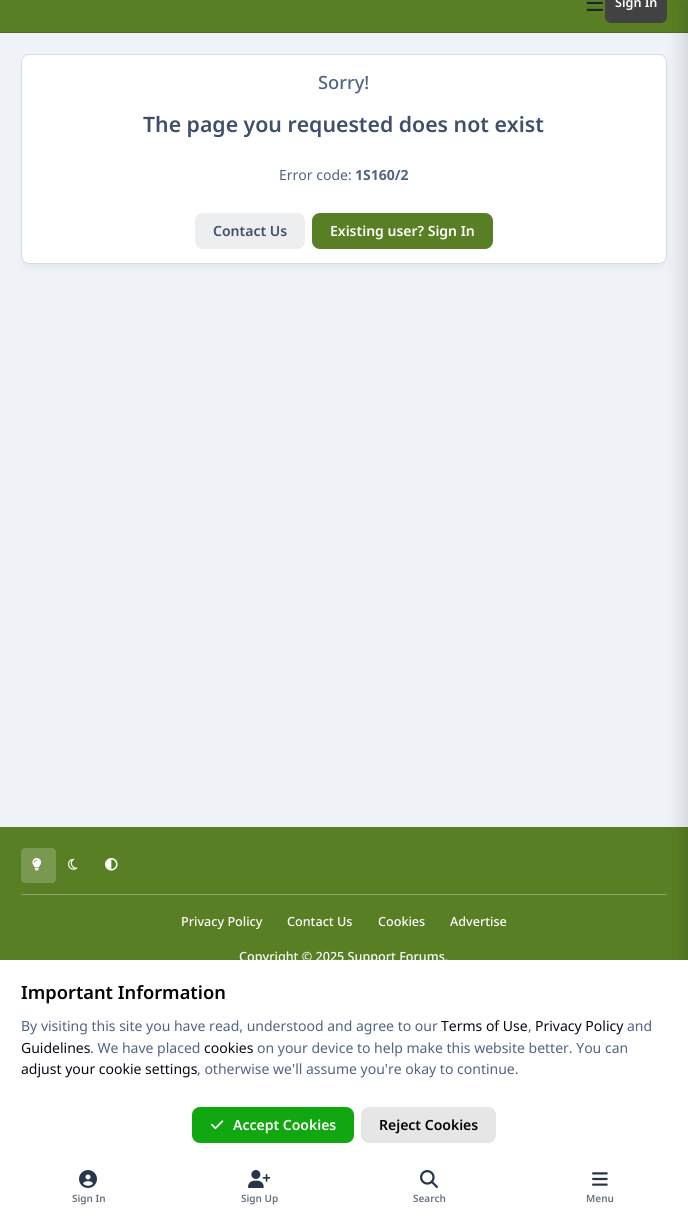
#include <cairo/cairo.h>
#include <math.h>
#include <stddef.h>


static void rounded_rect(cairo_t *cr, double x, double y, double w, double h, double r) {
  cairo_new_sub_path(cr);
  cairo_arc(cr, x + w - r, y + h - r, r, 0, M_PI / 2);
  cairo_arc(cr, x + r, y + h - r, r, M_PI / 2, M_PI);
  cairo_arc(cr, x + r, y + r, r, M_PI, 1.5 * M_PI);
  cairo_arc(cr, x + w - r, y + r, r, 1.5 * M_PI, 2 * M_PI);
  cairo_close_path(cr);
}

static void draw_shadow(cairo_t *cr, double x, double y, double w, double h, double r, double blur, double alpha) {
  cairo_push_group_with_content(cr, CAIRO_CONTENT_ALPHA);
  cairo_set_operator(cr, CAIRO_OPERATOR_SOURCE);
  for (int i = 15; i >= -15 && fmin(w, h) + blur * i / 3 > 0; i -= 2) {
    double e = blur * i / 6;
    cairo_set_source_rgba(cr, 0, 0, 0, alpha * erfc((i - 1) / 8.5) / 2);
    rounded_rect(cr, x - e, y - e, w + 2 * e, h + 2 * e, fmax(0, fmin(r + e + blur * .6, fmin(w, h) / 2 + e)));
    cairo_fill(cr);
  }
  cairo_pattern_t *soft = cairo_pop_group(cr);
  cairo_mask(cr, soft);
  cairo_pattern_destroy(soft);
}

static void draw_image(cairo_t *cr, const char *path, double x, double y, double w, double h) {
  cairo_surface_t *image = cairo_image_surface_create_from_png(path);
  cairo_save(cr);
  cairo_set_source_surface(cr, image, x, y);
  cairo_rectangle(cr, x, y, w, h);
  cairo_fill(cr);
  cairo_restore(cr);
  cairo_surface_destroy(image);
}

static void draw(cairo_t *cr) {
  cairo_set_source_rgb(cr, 239 / 255.0, 242 / 255.0, 247 / 255.0);
  cairo_paint(cr);
  cairo_set_source_rgb(cr, 89 / 255.0, 127 / 255.0, 36 / 255.0);
  cairo_rectangle(cr, 0, 0, 688, 32);
  cairo_fill(cr);
  cairo_set_source_rgb(cr, 77 / 255.0, 110 / 255.0, 34 / 255.0);
  cairo_rectangle(cr, 0, 32, 688, 1);
  cairo_fill(cr);
  cairo_set_source_rgb(cr, 66 / 255.0, 66 / 255.0, 66 / 255.0);
  rounded_rect(cr, 605, -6, 62, 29, 6);
  cairo_fill(cr);
  cairo_set_source_rgb(cr, 1 / 255.0, 3 / 255.0, 10 / 255.0);
  draw_shadow(cr, 24, 63, 640, 204, 5, 3.5, 0.05);
  cairo_set_source_rgb(cr, 1, 1, 1);
  rounded_rect(cr, 21.5, 54.5, 645, 209, 7.5);
  cairo_fill_preserve(cr);
  cairo_set_source_rgb(cr, 213 / 255.0, 219 / 255.0, 230 / 255.0);
  cairo_set_line_width(cr, 1);
  cairo_stroke(cr);
  cairo_set_source_rgb(cr, 89 / 255.0, 127 / 255.0, 36 / 255.0);
  cairo_rectangle(cr, 0, 827, 688, 133);
  cairo_fill(cr);
  cairo_set_source_rgb(cr, 139 / 255.0, 165 / 255.0, 102 / 255.0);
  cairo_rectangle(cr, 21, 894, 646, 1);
  cairo_fill(cr);
  cairo_set_source_rgb(cr, 0, 0, 0);
  draw_shadow(cr, 684, 0, 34, 1216, 0, 10, 0.15);
  cairo_set_source_rgb(cr, 236 / 255.0, 238 / 255.0, 240 / 255.0);
  rounded_rect(cr, 195, 213, 110, 36, 8);
  cairo_fill(cr);
  cairo_set_source_rgb(cr, 89 / 255.0, 127 / 255.0, 36 / 255.0);
  rounded_rect(cr, 312, 213, 181, 36, 8);
  cairo_fill(cr);
  cairo_set_source_rgb(cr, 122 / 255.0, 153 / 255.0, 80 / 255.0);
  rounded_rect(cr, 21, 848, 35, 35, 4);
  cairo_fill(cr);
  draw_image(cr, "images/1.png", 32, 858, 9, 13);
  draw_image(cr, "images/2.png", 68, 858, 10, 12);
  draw_image(cr, "images/3.png", 105, 858, 13, 13);
  cairo_set_source_rgba(cr, 64 / 255.0, 80 / 255.0, 107 / 255.0, 0.1);
  cairo_rectangle(cr, 0, 959, 688, 1);
  cairo_fill(cr);
  cairo_set_source_rgb(cr, 1, 1, 1);
  cairo_rectangle(cr, 0, 960, 688, 256);
  cairo_fill(cr);
  cairo_set_source_rgb(cr, 17 / 255.0, 167 / 255.0, 17 / 255.0);
  rounded_rect(cr, 192, 1107, 162, 36, 8);
  cairo_fill(cr);
  draw_image(cr, "images/4.png", 211, 1120, 13, 10);
  cairo_set_source_rgb(cr, 230 / 255.0, 230 / 255.0, 230 / 255.0);
  rounded_rect(cr, 361, 1107, 135, 36, 8);
  cairo_fill(cr);
  draw_image(cr, "images/5.png", 79, 1170, 18, 18);
  draw_image(cr, "images/6.png", 248, 1170, 22, 18);
  draw_image(cr, "images/7.png", 420, 1170, 18, 18);
  draw_image(cr, "images/8.png", 592, 1172, 16, 14);
  cairo_select_font_face(cr, "DejaVu Sans", CAIRO_FONT_SLANT_NORMAL, CAIRO_FONT_WEIGHT_NORMAL);
  cairo_set_font_size(cr, 22);
  cairo_set_source_rgb(cr, 27 / 255.0, 36 / 255.0, 52 / 255.0);
  cairo_move_to(cr, 585, 11);
  cairo_show_text(cr, "☰");
  cairo_select_font_face(cr, "Noto Sans SemiBold", CAIRO_FONT_SLANT_NORMAL, CAIRO_FONT_WEIGHT_NORMAL);
  cairo_set_font_size(cr, 12.6);
  cairo_set_source_rgb(cr, 1, 1, 1);
  cairo_move_to(cr, 615, 7);
  cairo_show_text(cr, "Sign In");
  cairo_select_font_face(cr, "Noto Sans Medium", CAIRO_FONT_SLANT_NORMAL, CAIRO_FONT_WEIGHT_NORMAL);
  cairo_set_font_size(cr, 18.25);
  cairo_set_source_rgb(cr, 81 / 255.0, 100 / 255.0, 131 / 255.0);
  cairo_move_to(cr, 318, 89);
  cairo_show_text(cr, "Sorry!");
  cairo_select_font_face(cr, "Noto Sans SemiBold", CAIRO_FONT_SLANT_NORMAL, CAIRO_FONT_WEIGHT_NORMAL);
  cairo_set_font_size(cr, 21.25);
  cairo_set_source_rgb(cr, 64 / 255.0, 80 / 255.0, 107 / 255.0);
  cairo_move_to(cr, 143, 132);
  cairo_show_text(cr, "The page you requested does not exist");
  cairo_select_font_face(cr, "Noto Sans", CAIRO_FONT_SLANT_NORMAL, CAIRO_FONT_WEIGHT_NORMAL);
  cairo_set_font_size(cr, 14);
  cairo_set_source_rgb(cr, 81 / 255.0, 100 / 255.0, 131 / 255.0);
  cairo_move_to(cr, 279, 180);
  cairo_show_text(cr, "Error code:");
  cairo_select_font_face(cr, "Noto Sans", CAIRO_FONT_SLANT_NORMAL, CAIRO_FONT_WEIGHT_BOLD);
  cairo_move_to(cr, 355, 180);
  cairo_show_text(cr, "1S160/2");
  cairo_select_font_face(cr, "Noto Sans SemiBold", CAIRO_FONT_SLANT_NORMAL, CAIRO_FONT_WEIGHT_NORMAL);
  cairo_set_source_rgb(cr, 64 / 255.0, 80 / 255.0, 107 / 255.0);
  cairo_move_to(cr, 213, 236);
  cairo_show_text(cr, "Contact Us");
  cairo_set_source_rgb(cr, 1, 1, 1);
  cairo_move_to(cr, 330, 236);
  cairo_show_text(cr, "Existing user? Sign In");
  cairo_select_font_face(cr, "Noto Sans Medium", CAIRO_FONT_SLANT_NORMAL, CAIRO_FONT_WEIGHT_NORMAL);
  cairo_set_font_size(cr, 12.6);
  cairo_move_to(cr, 181, 926);
  cairo_show_text(cr, "Privacy Policy");
  cairo_move_to(cr, 287, 926);
  cairo_show_text(cr, "Contact Us");
  cairo_move_to(cr, 378, 926);
  cairo_show_text(cr, "Cookies");
  cairo_move_to(cr, 450, 926);
  cairo_show_text(cr, "Advertise");
  cairo_move_to(cr, 239, 961);
  cairo_show_text(cr, "Copyright © 2025 Support Forums.");
  cairo_select_font_face(cr, "Noto Sans SemiBold", CAIRO_FONT_SLANT_NORMAL, CAIRO_FONT_WEIGHT_NORMAL);
  cairo_set_font_size(cr, 18.25);
  cairo_set_source_rgb(cr, 3 / 255.0, 3 / 255.0, 3 / 255.0);
  cairo_move_to(cr, 21, 999);
  cairo_show_text(cr, "Important Information");
  cairo_select_font_face(cr, "Noto Sans", CAIRO_FONT_SLANT_NORMAL, CAIRO_FONT_WEIGHT_NORMAL);
  cairo_set_font_size(cr, 14);
  cairo_set_source_rgb(cr, 81 / 255.0, 100 / 255.0, 131 / 255.0);
  cairo_move_to(cr, 21, 1031);
  cairo_show_text(cr, "By visiting this site you have read, understood and agree to our");
  cairo_set_source_rgb(cr, 6 / 255.0, 11 / 255.0, 20 / 255.0);
  cairo_move_to(cr, 441, 1031);
  cairo_show_text(cr, "Terms of Use");
  cairo_set_source_rgb(cr, 81 / 255.0, 100 / 255.0, 131 / 255.0);
  cairo_move_to(cr, 528, 1031);
  cairo_show_text(cr, ",");
  cairo_set_source_rgb(cr, 6 / 255.0, 11 / 255.0, 20 / 255.0);
  cairo_move_to(cr, 535, 1031);
  cairo_show_text(cr, "Privacy Policy");
  cairo_set_source_rgb(cr, 81 / 255.0, 100 / 255.0, 131 / 255.0);
  cairo_move_to(cr, 627, 1031);
  cairo_show_text(cr, "and");
  cairo_set_source_rgb(cr, 6 / 255.0, 11 / 255.0, 20 / 255.0);
  cairo_move_to(cr, 21, 1053);
  cairo_show_text(cr, "Guidelines");
  cairo_set_source_rgb(cr, 81 / 255.0, 100 / 255.0, 131 / 255.0);
  cairo_move_to(cr, 90, 1053);
  cairo_show_text(cr, ". We have placed");
  cairo_set_source_rgb(cr, 6 / 255.0, 11 / 255.0, 20 / 255.0);
  cairo_move_to(cr, 204, 1053);
  cairo_show_text(cr, "cookies");
  cairo_set_source_rgb(cr, 81 / 255.0, 100 / 255.0, 131 / 255.0);
  cairo_move_to(cr, 257, 1053);
  cairo_show_text(cr, "on your device to help make this website better. You can");
  cairo_set_source_rgb(cr, 6 / 255.0, 11 / 255.0, 20 / 255.0);
  cairo_move_to(cr, 21, 1074);
  cairo_show_text(cr, "adjust your cookie settings");
  cairo_set_source_rgb(cr, 81 / 255.0, 100 / 255.0, 131 / 255.0);
  cairo_move_to(cr, 197, 1074);
  cairo_show_text(cr, ", otherwise we'll assume you're okay to continue.");
  cairo_select_font_face(cr, "Noto Sans SemiBold", CAIRO_FONT_SLANT_NORMAL, CAIRO_FONT_WEIGHT_NORMAL);
  cairo_set_source_rgb(cr, 1, 1, 1);
  cairo_move_to(cr, 233, 1130);
  cairo_show_text(cr, "Accept Cookies");
  cairo_set_source_rgb(cr, 3 / 255.0, 3 / 255.0, 3 / 255.0);
  cairo_move_to(cr, 379, 1130);
  cairo_show_text(cr, "Reject Cookies");
  cairo_set_font_size(cr, 10);
  cairo_set_source_rgb(cr, 105 / 255.0, 114 / 255.0, 130 / 255.0);
  cairo_move_to(cr, 72, 1202);
  cairo_show_text(cr, "Sign In");
  cairo_move_to(cr, 241, 1202);
  cairo_show_text(cr, "Sign Up");
  cairo_move_to(cr, 413, 1202);
  cairo_show_text(cr, "Search");
  cairo_move_to(cr, 586, 1202);
  cairo_show_text(cr, "Menu");
}

int main(void) {
  cairo_surface_t *surface = cairo_image_surface_create(CAIRO_FORMAT_RGB24, 688, 1216);
  cairo_t *cr = cairo_create(surface);
  cairo_font_options_t *options = cairo_font_options_create();
  cairo_font_options_set_hint_metrics(options, CAIRO_HINT_METRICS_OFF);
  cairo_font_options_set_hint_style(options, CAIRO_HINT_STYLE_NONE);
  cairo_set_font_options(cr, options);
  cairo_set_miter_limit(cr, 4);
  draw(cr);
  cairo_surface_write_to_png(surface, "out.png");
  cairo_font_options_destroy(options);
  cairo_destroy(cr);
  cairo_surface_destroy(surface);
  return 0;
}
